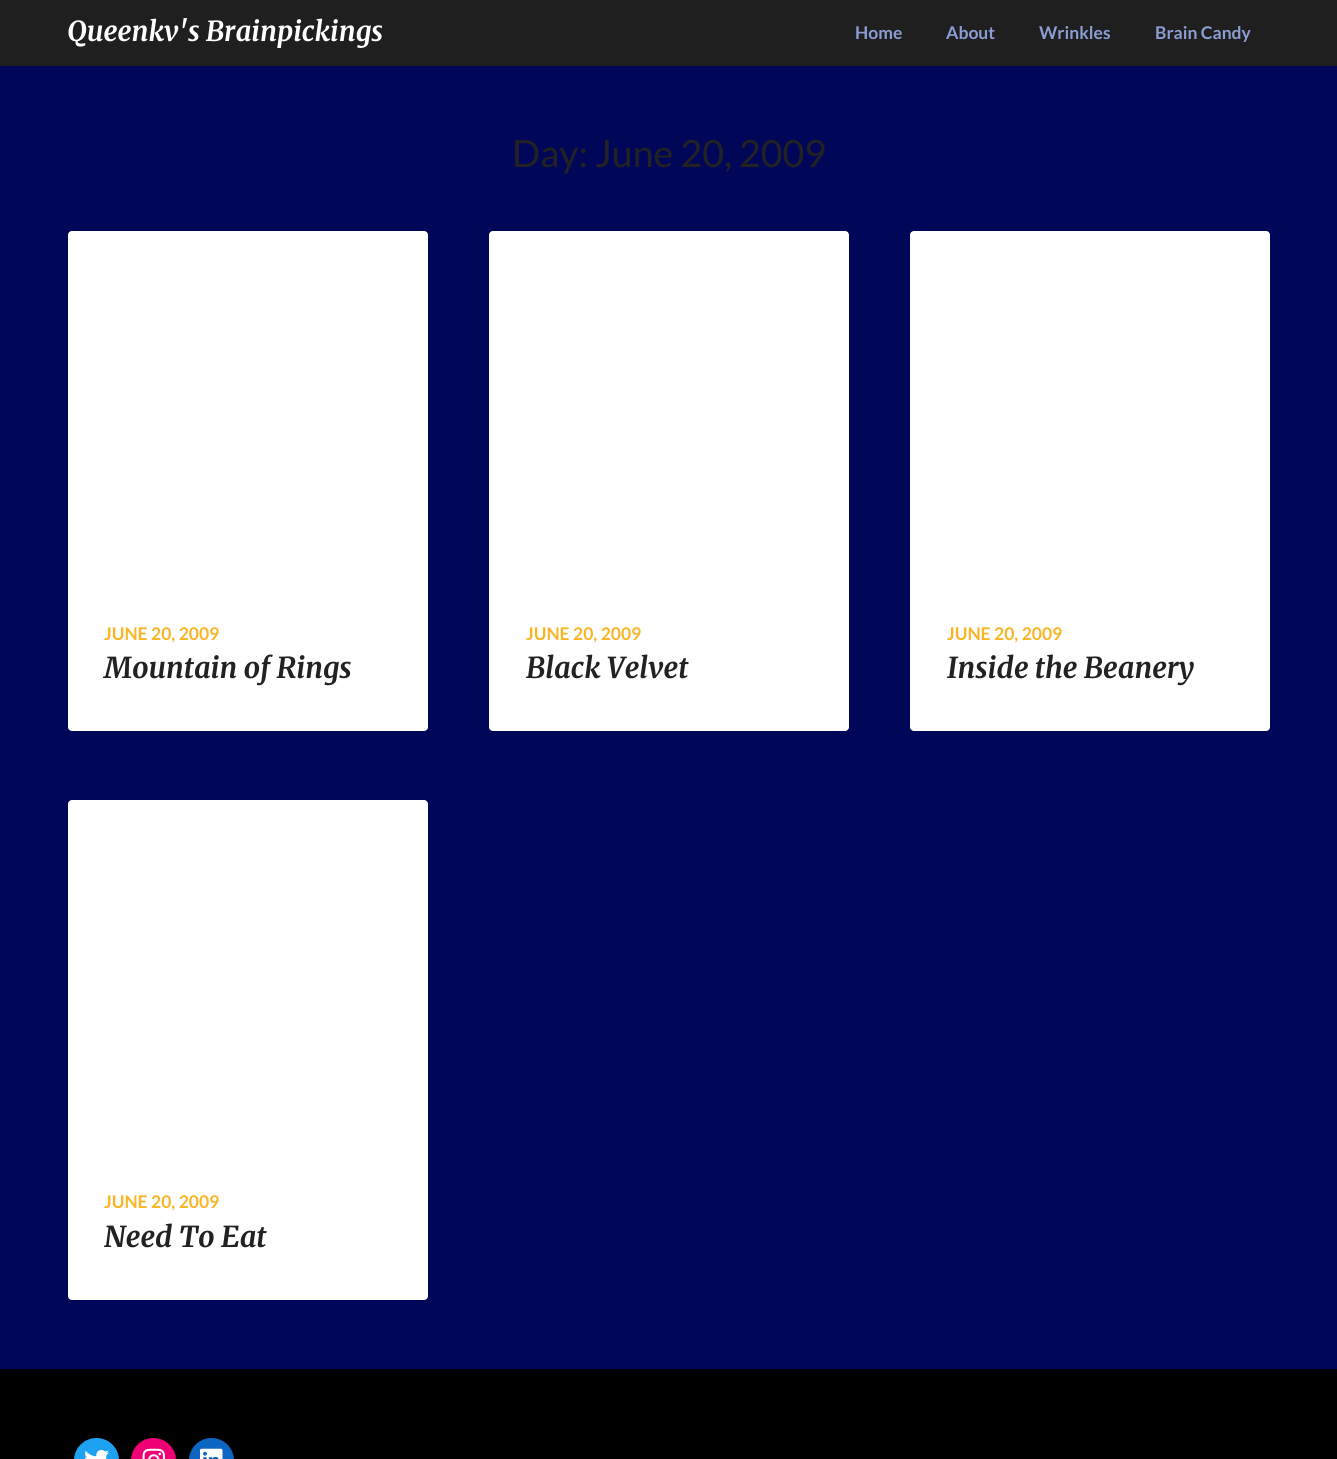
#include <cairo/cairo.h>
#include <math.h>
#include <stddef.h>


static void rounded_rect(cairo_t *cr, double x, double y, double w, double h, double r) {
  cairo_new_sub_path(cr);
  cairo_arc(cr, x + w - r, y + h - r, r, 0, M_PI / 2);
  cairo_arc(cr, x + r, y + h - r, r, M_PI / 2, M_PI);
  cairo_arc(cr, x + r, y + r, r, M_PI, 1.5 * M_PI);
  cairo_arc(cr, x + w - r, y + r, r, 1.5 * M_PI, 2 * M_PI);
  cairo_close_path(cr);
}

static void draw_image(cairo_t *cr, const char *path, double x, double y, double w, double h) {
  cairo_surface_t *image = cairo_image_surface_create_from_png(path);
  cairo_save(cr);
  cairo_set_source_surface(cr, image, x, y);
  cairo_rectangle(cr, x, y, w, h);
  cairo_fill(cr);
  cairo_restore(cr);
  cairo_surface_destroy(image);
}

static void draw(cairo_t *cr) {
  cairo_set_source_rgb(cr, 0, 7 / 255.0, 89 / 255.0);
  cairo_paint(cr);
  cairo_set_source_rgb(cr, 31 / 255.0, 31 / 255.0, 31 / 255.0);
  cairo_rectangle(cr, 0, 0, 1337, 66);
  cairo_fill(cr);
  cairo_set_source_rgb(cr, 1, 1, 1);
  rounded_rect(cr, 68, 231, 360, 500, 4);
  cairo_fill(cr);
  rounded_rect(cr, 489, 231, 360, 500, 4);
  cairo_fill(cr);
  rounded_rect(cr, 910, 231, 360, 500, 4);
  cairo_fill(cr);
  rounded_rect(cr, 68, 800, 360, 500, 4);
  cairo_fill(cr);
  cairo_set_source_rgb(cr, 0, 0, 0);
  cairo_rectangle(cr, 0, 1369, 1337, 90);
  cairo_fill(cr);
  cairo_set_source_rgb(cr, 29 / 255.0, 161 / 255.0, 242 / 255.0);
  rounded_rect(cr, 74, 1438, 45, 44, 22.5);
  cairo_fill(cr);
  draw_image(cr, "images/1.png", 85, 1450, 24, 9);
  cairo_set_source_rgb(cr, 240 / 255.0, 0, 117 / 255.0);
  rounded_rect(cr, 131, 1438, 45, 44, 22.5);
  cairo_fill(cr);
  draw_image(cr, "images/2.png", 142, 1448, 23, 11);
  cairo_set_source_rgb(cr, 13 / 255.0, 102 / 255.0, 194 / 255.0);
  rounded_rect(cr, 189, 1438, 45, 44, 22.5);
  cairo_fill(cr);
  draw_image(cr, "images/3.png", 200, 1448, 23, 11);
  cairo_select_font_face(cr, "Merriweather", CAIRO_FONT_SLANT_ITALIC, CAIRO_FONT_WEIGHT_BOLD);
  cairo_set_font_size(cr, 27.5);
  cairo_set_source_rgb(cr, 1, 1, 1);
  cairo_move_to(cr, 67, 41);
  cairo_show_text(cr, "Queenkv's Brainpickings");
  cairo_select_font_face(cr, "Lato", CAIRO_FONT_SLANT_NORMAL, CAIRO_FONT_WEIGHT_BOLD);
  cairo_set_font_size(cr, 17.5);
  cairo_set_source_rgb(cr, 139 / 255.0, 158 / 255.0, 211 / 255.0);
  cairo_move_to(cr, 855, 39);
  cairo_show_text(cr, "Home");
  cairo_move_to(cr, 946, 39);
  cairo_show_text(cr, "About");
  cairo_move_to(cr, 1039, 39);
  cairo_show_text(cr, "Wrinkles");
  cairo_move_to(cr, 1155, 39);
  cairo_show_text(cr, "Brain Candy");
  cairo_select_font_face(cr, "Lato", CAIRO_FONT_SLANT_NORMAL, CAIRO_FONT_WEIGHT_NORMAL);
  cairo_set_font_size(cr, 37.5);
  cairo_set_source_rgb(cr, 34 / 255.0, 34 / 255.0, 34 / 255.0);
  cairo_move_to(cr, 512, 167);
  cairo_show_text(cr, "Day: June 20, 2009");
  cairo_select_font_face(cr, "Lato", CAIRO_FONT_SLANT_NORMAL, CAIRO_FONT_WEIGHT_BOLD);
  cairo_set_font_size(cr, 17.5);
  cairo_set_source_rgb(cr, 250 / 255.0, 181 / 255.0, 38 / 255.0);
  cairo_move_to(cr, 104, 640);
  cairo_show_text(cr, "JUNE 20, 2009");
  cairo_select_font_face(cr, "Merriweather", CAIRO_FONT_SLANT_ITALIC, CAIRO_FONT_WEIGHT_BOLD);
  cairo_set_font_size(cr, 28.75);
  cairo_set_source_rgb(cr, 34 / 255.0, 34 / 255.0, 34 / 255.0);
  cairo_move_to(cr, 104, 678);
  cairo_show_text(cr, "Mountain of Rings");
  cairo_select_font_face(cr, "Lato", CAIRO_FONT_SLANT_NORMAL, CAIRO_FONT_WEIGHT_BOLD);
  cairo_set_font_size(cr, 17.5);
  cairo_set_source_rgb(cr, 250 / 255.0, 181 / 255.0, 38 / 255.0);
  cairo_move_to(cr, 526, 640);
  cairo_show_text(cr, "JUNE 20, 2009");
  cairo_select_font_face(cr, "Merriweather", CAIRO_FONT_SLANT_ITALIC, CAIRO_FONT_WEIGHT_BOLD);
  cairo_set_font_size(cr, 28.75);
  cairo_set_source_rgb(cr, 34 / 255.0, 34 / 255.0, 34 / 255.0);
  cairo_move_to(cr, 526, 678);
  cairo_show_text(cr, "Black Velvet");
  cairo_select_font_face(cr, "Lato", CAIRO_FONT_SLANT_NORMAL, CAIRO_FONT_WEIGHT_BOLD);
  cairo_set_font_size(cr, 17.5);
  cairo_set_source_rgb(cr, 250 / 255.0, 181 / 255.0, 38 / 255.0);
  cairo_move_to(cr, 947, 640);
  cairo_show_text(cr, "JUNE 20, 2009");
  cairo_select_font_face(cr, "Merriweather", CAIRO_FONT_SLANT_ITALIC, CAIRO_FONT_WEIGHT_BOLD);
  cairo_set_font_size(cr, 28.75);
  cairo_set_source_rgb(cr, 34 / 255.0, 34 / 255.0, 34 / 255.0);
  cairo_move_to(cr, 947, 678);
  cairo_show_text(cr, "Inside the Beanery");
  cairo_select_font_face(cr, "Lato", CAIRO_FONT_SLANT_NORMAL, CAIRO_FONT_WEIGHT_BOLD);
  cairo_set_font_size(cr, 17.5);
  cairo_set_source_rgb(cr, 250 / 255.0, 181 / 255.0, 38 / 255.0);
  cairo_move_to(cr, 104, 1208);
  cairo_show_text(cr, "JUNE 20, 2009");
  cairo_select_font_face(cr, "Merriweather", CAIRO_FONT_SLANT_ITALIC, CAIRO_FONT_WEIGHT_BOLD);
  cairo_set_font_size(cr, 28.75);
  cairo_set_source_rgb(cr, 34 / 255.0, 34 / 255.0, 34 / 255.0);
  cairo_move_to(cr, 104, 1247);
  cairo_show_text(cr, "Need To Eat");
}

int main(void) {
  cairo_surface_t *surface = cairo_image_surface_create(CAIRO_FORMAT_RGB24, 1337, 1459);
  cairo_t *cr = cairo_create(surface);
  cairo_font_options_t *options = cairo_font_options_create();
  cairo_font_options_set_hint_metrics(options, CAIRO_HINT_METRICS_OFF);
  cairo_font_options_set_hint_style(options, CAIRO_HINT_STYLE_NONE);
  cairo_set_font_options(cr, options);
  cairo_set_miter_limit(cr, 4);
  draw(cr);
  cairo_surface_write_to_png(surface, "out.png");
  cairo_font_options_destroy(options);
  cairo_destroy(cr);
  cairo_surface_destroy(surface);
  return 0;
}
